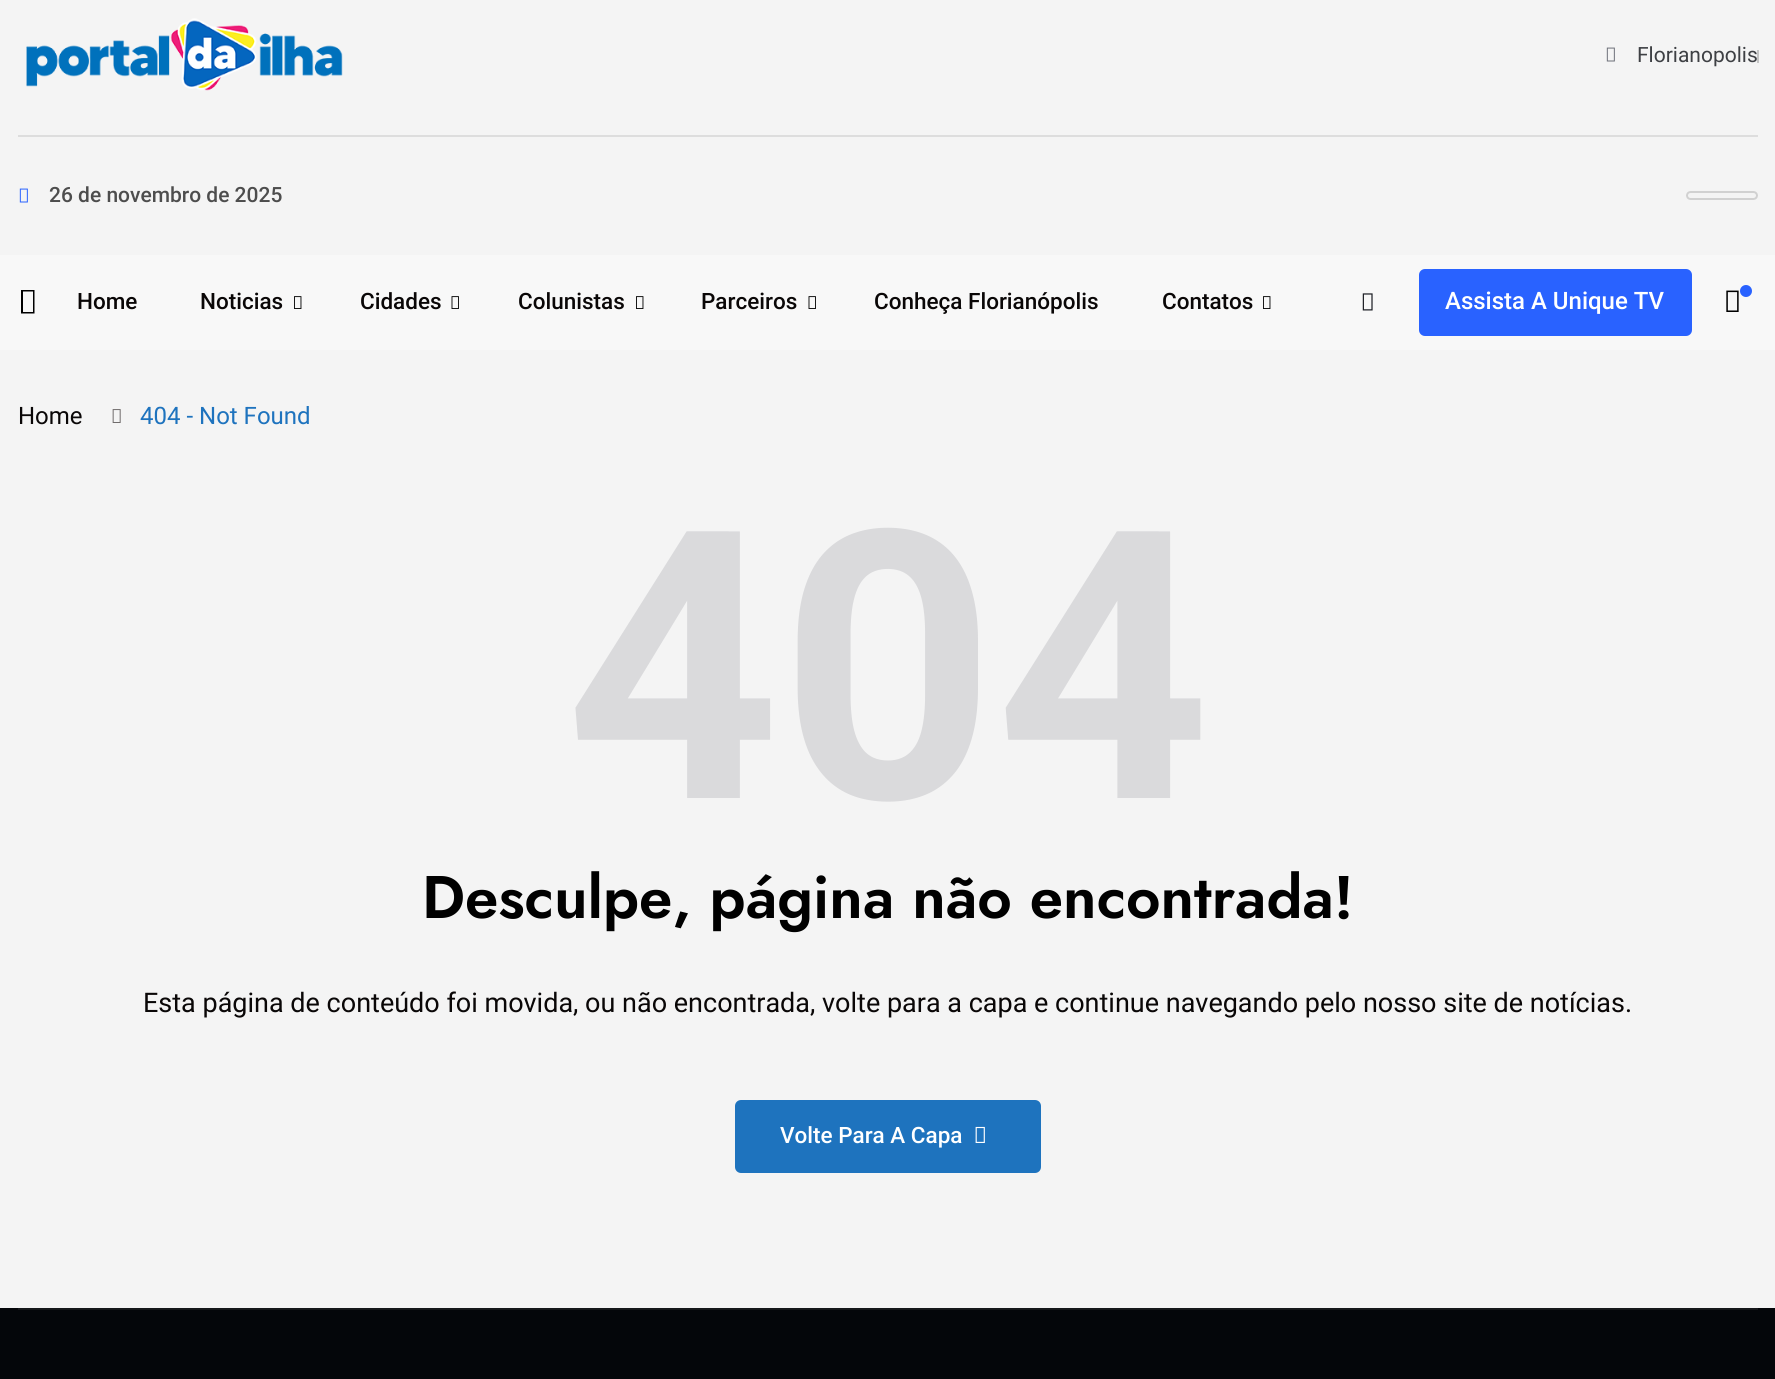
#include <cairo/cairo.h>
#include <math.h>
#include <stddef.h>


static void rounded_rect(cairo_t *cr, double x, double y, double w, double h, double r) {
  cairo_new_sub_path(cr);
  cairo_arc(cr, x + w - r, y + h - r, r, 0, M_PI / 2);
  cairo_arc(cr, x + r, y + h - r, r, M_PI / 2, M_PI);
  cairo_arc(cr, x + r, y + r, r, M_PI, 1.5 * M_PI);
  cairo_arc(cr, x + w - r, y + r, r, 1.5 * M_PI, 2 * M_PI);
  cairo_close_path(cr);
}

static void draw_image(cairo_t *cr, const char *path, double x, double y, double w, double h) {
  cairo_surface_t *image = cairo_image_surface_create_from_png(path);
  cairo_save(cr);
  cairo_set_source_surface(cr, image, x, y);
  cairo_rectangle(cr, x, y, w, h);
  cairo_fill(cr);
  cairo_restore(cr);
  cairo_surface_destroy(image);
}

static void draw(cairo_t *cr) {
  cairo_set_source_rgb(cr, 244 / 255.0, 244 / 255.0, 244 / 255.0);
  cairo_paint(cr);
  cairo_set_source_rgb(cr, 221 / 255.0, 221 / 255.0, 221 / 255.0);
  cairo_rectangle(cr, 18, 135, 1740, 2);
  cairo_fill(cr);
  draw_image(cr, "images/1.png", 26, 18, 317, 73);
  draw_image(cr, "images/2.png", 1606, 47, 9, 15);
  cairo_set_source_rgb(cr, 196 / 255.0, 196 / 255.0, 196 / 255.0);
  cairo_rectangle(cr, 1757, 50, 2, 13);
  cairo_fill(cr);
  draw_image(cr, "images/3.png", 19, 188, 9, 15);
  rounded_rect(cr, 1687, 192, 70, 7, 3.5);
  cairo_set_source_rgb(cr, 209 / 255.0, 209 / 255.0, 209 / 255.0);
  cairo_stroke(cr);
  cairo_set_source_rgb(cr, 248 / 255.0, 248 / 255.0, 248 / 255.0);
  cairo_rectangle(cr, 0, 255, 1775, 95);
  cairo_fill(cr);
  cairo_set_source_rgb(cr, 0, 0, 0);
  cairo_new_path(cr);
  cairo_move_to(cr, 21, 313.5);
  cairo_line_to(cr, 21, 290);
  cairo_line_to(cr, 34.5, 290);
  cairo_line_to(cr, 34.5, 313.5);
  cairo_close_path(cr);
  cairo_move_to(cr, 23, 312);
  cairo_line_to(cr, 33, 312);
  cairo_line_to(cr, 33, 291.5);
  cairo_line_to(cr, 23, 291.5);
  cairo_close_path(cr);
  cairo_fill(cr);
  draw_image(cr, "images/4.png", 294, 296, 8, 13);
  draw_image(cr, "images/5.png", 451, 296, 8, 13);
  draw_image(cr, "images/4.png", 636, 296, 8, 13);
  draw_image(cr, "images/5.png", 808, 296, 8, 13);
  draw_image(cr, "images/4.png", 1263, 296, 8, 13);
  draw_image(cr, "images/6.png", 1362, 293, 11, 18);
  cairo_set_source_rgb(cr, 41 / 255.0, 98 / 255.0, 1);
  rounded_rect(cr, 1419, 269, 273, 67, 6);
  cairo_fill(cr);
  draw_image(cr, "images/7.png", 1726, 290, 13, 22);
  cairo_arc(cr, 1746, 291, 6, 0, 2 * M_PI);
  cairo_fill(cr);
  draw_image(cr, "images/8.png", 112, 409, 9, 14);
  cairo_set_source_rgb(cr, 30 / 255.0, 115 / 255.0, 190 / 255.0);
  rounded_rect(cr, 735, 1100, 306, 73, 6);
  cairo_fill(cr);
  draw_image(cr, "images/9.png", 975, 1126, 10, 17);
  cairo_set_source_rgb(cr, 4 / 255.0, 6 / 255.0, 10 / 255.0);
  cairo_rectangle(cr, 0, 1308, 1775, 71);
  cairo_fill(cr);
  cairo_set_source_rgb(cr, 21 / 255.0, 23 / 255.0, 26 / 255.0);
  cairo_rectangle(cr, 18, 1308, 1740, 2);
  cairo_fill(cr);
  cairo_select_font_face(cr, "Roboto", CAIRO_FONT_SLANT_NORMAL, CAIRO_FONT_WEIGHT_NORMAL);
  cairo_set_font_size(cr, 21);
  cairo_set_source_rgb(cr, 62 / 255.0, 64 / 255.0, 68 / 255.0);
  cairo_move_to(cr, 1637, 62);
  cairo_show_text(cr, "Florianopolis");
  cairo_select_font_face(cr, "Roboto Medium", CAIRO_FONT_SLANT_NORMAL, CAIRO_FONT_WEIGHT_NORMAL);
  cairo_set_source_rgb(cr, 77 / 255.0, 77 / 255.0, 77 / 255.0);
  cairo_move_to(cr, 49, 202);
  cairo_show_text(cr, "26 de novembro de 2025");
  cairo_set_font_size(cr, 22.5);
  cairo_set_source_rgb(cr, 10 / 255.0, 7 / 255.0, 7 / 255.0);
  cairo_move_to(cr, 77, 309);
  cairo_show_text(cr, "Home");
  cairo_move_to(cr, 200, 309);
  cairo_show_text(cr, "Noticias");
  cairo_move_to(cr, 360, 309);
  cairo_show_text(cr, "Cidades");
  cairo_move_to(cr, 518, 309);
  cairo_show_text(cr, "Colunistas");
  cairo_move_to(cr, 701, 309);
  cairo_show_text(cr, "Parceiros");
  cairo_move_to(cr, 874, 309);
  cairo_show_text(cr, "Conheça Florianópolis");
  cairo_move_to(cr, 1162, 309);
  cairo_show_text(cr, "Contatos");
  cairo_set_font_size(cr, 24);
  cairo_set_source_rgb(cr, 1, 1, 1);
  cairo_move_to(cr, 1445, 309);
  cairo_show_text(cr, "Assista A Unique TV");
  cairo_select_font_face(cr, "Roboto", CAIRO_FONT_SLANT_NORMAL, CAIRO_FONT_WEIGHT_NORMAL);
  cairo_set_source_rgb(cr, 10 / 255.0, 7 / 255.0, 7 / 255.0);
  cairo_move_to(cr, 18, 424);
  cairo_show_text(cr, "Home");
  cairo_set_source_rgb(cr, 30 / 255.0, 115 / 255.0, 190 / 255.0);
  cairo_move_to(cr, 140, 424);
  cairo_show_text(cr, "404 - Not Found");
  cairo_select_font_face(cr, "Roboto", CAIRO_FONT_SLANT_NORMAL, CAIRO_FONT_WEIGHT_BOLD);
  cairo_set_font_size(cr, 375);
  cairo_set_source_rgb(cr, 218 / 255.0, 218 / 255.0, 220 / 255.0);
  cairo_move_to(cr, 565, 798);
  cairo_show_text(cr, "404");
  cairo_select_font_face(cr, "Jost SemiBold", CAIRO_FONT_SLANT_NORMAL, CAIRO_FONT_WEIGHT_NORMAL);
  cairo_set_font_size(cr, 60);
  cairo_set_source_rgb(cr, 0, 0, 0);
  cairo_move_to(cr, 422, 918);
  cairo_show_text(cr, "Desculpe, página não encontrada!");
  cairo_select_font_face(cr, "Roboto", CAIRO_FONT_SLANT_NORMAL, CAIRO_FONT_WEIGHT_NORMAL);
  cairo_set_font_size(cr, 27);
  cairo_set_source_rgb(cr, 10 / 255.0, 7 / 255.0, 7 / 255.0);
  cairo_move_to(cr, 143, 1012);
  cairo_show_text(cr, "Esta página de conteúdo foi movida, ou não encontrada, volte para a capa e continue navegando pelo nosso site de notícias.");
  cairo_select_font_face(cr, "Roboto Medium", CAIRO_FONT_SLANT_NORMAL, CAIRO_FONT_WEIGHT_NORMAL);
  cairo_set_font_size(cr, 22.5);
  cairo_set_source_rgb(cr, 1, 1, 1);
  cairo_move_to(cr, 780, 1143);
  cairo_show_text(cr, "Volte Para A Capa");
}

int main(void) {
  cairo_surface_t *surface = cairo_image_surface_create(CAIRO_FORMAT_RGB24, 1775, 1379);
  cairo_t *cr = cairo_create(surface);
  cairo_font_options_t *options = cairo_font_options_create();
  cairo_font_options_set_hint_metrics(options, CAIRO_HINT_METRICS_OFF);
  cairo_font_options_set_hint_style(options, CAIRO_HINT_STYLE_NONE);
  cairo_set_font_options(cr, options);
  cairo_set_miter_limit(cr, 4);
  draw(cr);
  cairo_surface_write_to_png(surface, "out.png");
  cairo_font_options_destroy(options);
  cairo_destroy(cr);
  cairo_surface_destroy(surface);
  return 0;
}
